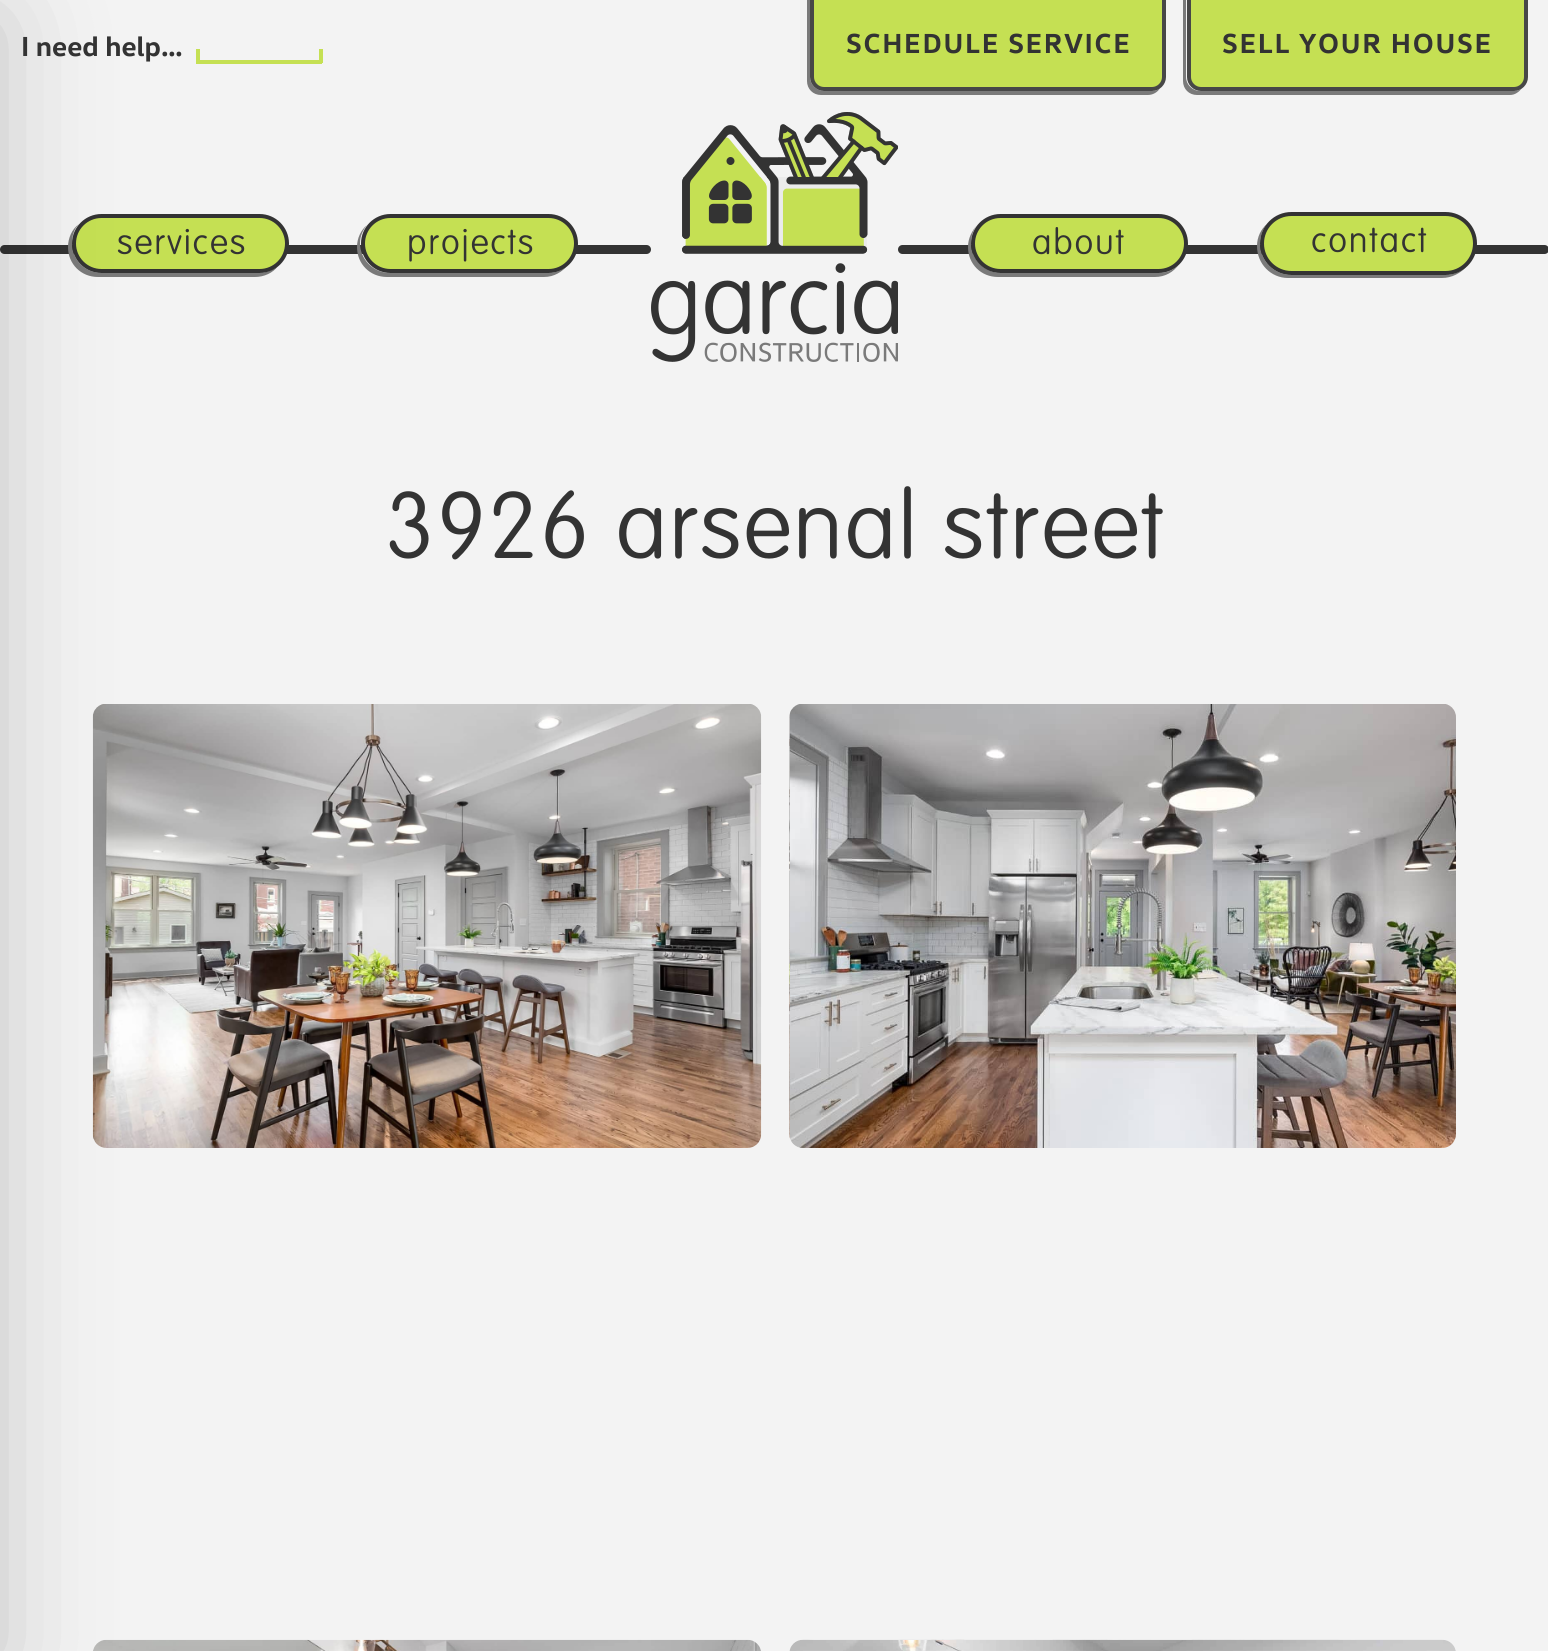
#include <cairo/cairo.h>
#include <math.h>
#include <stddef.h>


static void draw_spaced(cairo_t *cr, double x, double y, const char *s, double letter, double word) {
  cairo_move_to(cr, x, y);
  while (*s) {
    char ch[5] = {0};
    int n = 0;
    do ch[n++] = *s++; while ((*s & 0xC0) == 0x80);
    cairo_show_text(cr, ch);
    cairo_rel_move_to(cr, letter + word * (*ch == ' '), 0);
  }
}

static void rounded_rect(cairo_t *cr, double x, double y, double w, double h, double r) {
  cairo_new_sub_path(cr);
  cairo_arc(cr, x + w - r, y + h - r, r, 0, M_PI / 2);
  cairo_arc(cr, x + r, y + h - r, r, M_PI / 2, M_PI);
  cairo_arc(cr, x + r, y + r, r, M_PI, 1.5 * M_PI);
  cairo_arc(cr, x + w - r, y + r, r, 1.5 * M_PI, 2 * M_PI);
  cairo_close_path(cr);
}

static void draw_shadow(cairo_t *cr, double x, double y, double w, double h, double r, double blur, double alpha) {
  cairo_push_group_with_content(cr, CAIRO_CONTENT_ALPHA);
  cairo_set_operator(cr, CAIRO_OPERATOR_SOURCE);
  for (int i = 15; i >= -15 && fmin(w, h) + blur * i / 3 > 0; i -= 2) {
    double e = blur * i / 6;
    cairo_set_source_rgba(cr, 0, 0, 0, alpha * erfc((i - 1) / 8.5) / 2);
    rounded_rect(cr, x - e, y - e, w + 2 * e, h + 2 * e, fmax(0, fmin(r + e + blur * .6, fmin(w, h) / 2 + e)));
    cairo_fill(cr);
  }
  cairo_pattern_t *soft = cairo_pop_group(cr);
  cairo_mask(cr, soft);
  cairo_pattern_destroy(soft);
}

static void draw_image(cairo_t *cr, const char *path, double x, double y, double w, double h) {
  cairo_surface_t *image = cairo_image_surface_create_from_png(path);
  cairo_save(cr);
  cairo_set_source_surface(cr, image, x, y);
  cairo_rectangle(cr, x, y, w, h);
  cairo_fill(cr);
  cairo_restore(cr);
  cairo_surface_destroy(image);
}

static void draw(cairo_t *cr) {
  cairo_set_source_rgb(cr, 243 / 255.0, 243 / 255.0, 243 / 255.0);
  cairo_paint(cr);
  cairo_set_source_rgb(cr, 51 / 255.0, 51 / 255.0, 51 / 255.0);
  rounded_rect(cr, 0, 245, 651, 9, 4.5);
  cairo_fill(cr);
  cairo_set_source_rgb(cr, 122 / 255.0, 122 / 255.0, 122 / 255.0);
  cairo_new_path(cr);
  cairo_move_to(cr, 79, 224);
  cairo_curve_to(cr, 72, 229, 68, 238, 68, 247);
  cairo_curve_to(cr, 68, 264, 81, 277, 98, 277);
  cairo_line_to(cr, 255, 277);
  cairo_curve_to(cr, 264, 277, 273, 273, 278, 266);
  cairo_curve_to(cr, 273, 270, 266, 273, 259, 273);
  cairo_line_to(cr, 102, 273);
  cairo_curve_to(cr, 85, 273, 72, 260, 72, 243);
  cairo_curve_to(cr, 72, 236, 74, 229, 79, 224);
  cairo_close_path(cr);
  cairo_fill(cr);
  cairo_set_source_rgb(cr, 197 / 255.0, 224 / 255.0, 83 / 255.0);
  rounded_rect(cr, 74, 216, 213, 55, 27.5);
  cairo_fill_preserve(cr);
  cairo_set_source_rgb(cr, 51 / 255.0, 51 / 255.0, 51 / 255.0);
  cairo_set_line_width(cr, 4);
  cairo_stroke(cr);
  draw_image(cr, "images/10.png", 92, 704, 670, 444);
  draw_image(cr, "images/12.png", 93, 1639, 668, 12);
  cairo_set_source_rgb(cr, 0, 0, 0);
  draw_shadow(cr, -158, 18, 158, 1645, 0, 52.5, 0.2);
  cairo_set_source_rgb(cr, 197 / 255.0, 224 / 255.0, 83 / 255.0);
  cairo_rectangle(cr, 196, 49, 4, 14);
  cairo_fill(cr);
  cairo_rectangle(cr, 319, 49, 4, 14);
  cairo_fill(cr);
  cairo_rectangle(cr, 196, 60, 126, 4);
  cairo_fill(cr);
  cairo_set_source_rgb(cr, 122 / 255.0, 122 / 255.0, 122 / 255.0);
  cairo_new_path(cr);
  cairo_move_to(cr, 807, -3);
  cairo_line_to(cr, 807, 81);
  cairo_curve_to(cr, 807, 89, 813, 95, 821, 95);
  cairo_line_to(cr, 1148, 95);
  cairo_curve_to(cr, 1153, 95, 1158, 92, 1160, 88);
  cairo_curve_to(cr, 1158, 90, 1155, 91, 1152, 91);
  cairo_line_to(cr, 824, 91);
  cairo_curve_to(cr, 817, 91, 810, 85, 810, 77);
  cairo_line_to(cr, 810, -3);
  cairo_close_path(cr);
  cairo_fill(cr);
  cairo_set_source_rgb(cr, 197 / 255.0, 224 / 255.0, 83 / 255.0);
  cairo_new_path(cr);
  cairo_move_to(cr, 812, -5);
  cairo_line_to(cr, 1164, -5);
  cairo_line_to(cr, 1164, 77);
  cairo_curve_to(cr, 1164, 83.5, 1158.5, 89, 1152, 89);
  cairo_line_to(cr, 824, 89);
  cairo_curve_to(cr, 817.5, 89, 812, 83.5, 812, 77);
  cairo_close_path(cr);
  cairo_fill_preserve(cr);
  cairo_set_source_rgb(cr, 71 / 255.0, 71 / 255.0, 71 / 255.0);
  cairo_stroke(cr);
  cairo_set_source_rgb(cr, 122 / 255.0, 122 / 255.0, 122 / 255.0);
  cairo_new_path(cr);
  cairo_move_to(cr, 1183, -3);
  cairo_line_to(cr, 1183, 81);
  cairo_curve_to(cr, 1183, 89, 1189, 95, 1197, 95);
  cairo_line_to(cr, 1510, 95);
  cairo_curve_to(cr, 1515, 95, 1519, 92, 1522, 88);
  cairo_curve_to(cr, 1520, 90, 1517, 91, 1514, 91);
  cairo_line_to(cr, 1200, 91);
  cairo_curve_to(cr, 1193, 91, 1186, 85, 1186, 77);
  cairo_line_to(cr, 1186, -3);
  cairo_close_path(cr);
  cairo_fill(cr);
  cairo_set_source_rgb(cr, 197 / 255.0, 224 / 255.0, 83 / 255.0);
  cairo_new_path(cr);
  cairo_move_to(cr, 1189, -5);
  cairo_line_to(cr, 1526, -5);
  cairo_line_to(cr, 1526, 77);
  cairo_curve_to(cr, 1526, 83.5, 1520.5, 89, 1514, 89);
  cairo_line_to(cr, 1201, 89);
  cairo_curve_to(cr, 1194.5, 89, 1189, 83.5, 1189, 77);
  cairo_close_path(cr);
  cairo_fill_preserve(cr);
  cairo_set_source_rgb(cr, 71 / 255.0, 71 / 255.0, 71 / 255.0);
  cairo_stroke(cr);
  draw_image(cr, "images/4.png", 682, 124, 186, 130);
  draw_image(cr, "images/1.png", 821, 112, 77, 65);
  draw_image(cr, "images/2.png", 821, 112, 77, 65);
  draw_image(cr, "images/3.png", 821, 112, 77, 65);
  draw_image(cr, "images/5.png", 778, 124, 36, 53);
  draw_image(cr, "images/6.png", 778, 124, 36, 53);
  draw_image(cr, "images/7.png", 778, 124, 36, 53);
  draw_image(cr, "images/8.png", 682, 177, 186, 77);
  cairo_set_source_rgb(cr, 122 / 255.0, 122 / 255.0, 122 / 255.0);
  cairo_new_path(cr);
  cairo_move_to(cr, 367, 225);
  cairo_curve_to(cr, 361, 230, 357, 238, 357, 247);
  cairo_curve_to(cr, 357, 264, 370, 277, 387, 277);
  cairo_line_to(cr, 544, 277);
  cairo_curve_to(cr, 554, 277, 562, 272, 568, 265);
  cairo_curve_to(cr, 563, 270, 556, 273, 548, 273);
  cairo_line_to(cr, 390, 273);
  cairo_curve_to(cr, 374, 273, 360, 260, 360, 243);
  cairo_curve_to(cr, 360, 236, 363, 230, 367, 225);
  cairo_close_path(cr);
  cairo_fill(cr);
  cairo_set_source_rgb(cr, 197 / 255.0, 224 / 255.0, 83 / 255.0);
  rounded_rect(cr, 363, 216, 213, 55, 27.5);
  cairo_fill_preserve(cr);
  cairo_set_source_rgb(cr, 51 / 255.0, 51 / 255.0, 51 / 255.0);
  cairo_stroke(cr);
  rounded_rect(cr, 898, 245, 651, 9, 4.5);
  cairo_fill(cr);
  cairo_set_source_rgb(cr, 122 / 255.0, 122 / 255.0, 122 / 255.0);
  cairo_new_path(cr);
  cairo_move_to(cr, 977, 225);
  cairo_curve_to(cr, 972, 231, 968, 238, 968, 247);
  cairo_curve_to(cr, 968, 264, 981, 277, 998, 277);
  cairo_line_to(cr, 1155, 277);
  cairo_curve_to(cr, 1165, 277, 1174, 272, 1179, 264);
  cairo_curve_to(cr, 1174, 270, 1167, 273, 1158, 273);
  cairo_line_to(cr, 1001, 273);
  cairo_curve_to(cr, 985, 273, 971, 260, 971, 243);
  cairo_curve_to(cr, 971, 237, 973, 230, 977, 225);
  cairo_close_path(cr);
  cairo_fill(cr);
  cairo_set_source_rgb(cr, 197 / 255.0, 224 / 255.0, 83 / 255.0);
  rounded_rect(cr, 973, 216, 213, 55, 27.5);
  cairo_fill_preserve(cr);
  cairo_set_source_rgb(cr, 51 / 255.0, 51 / 255.0, 51 / 255.0);
  cairo_stroke(cr);
  cairo_set_source_rgb(cr, 122 / 255.0, 122 / 255.0, 122 / 255.0);
  cairo_new_path(cr);
  cairo_move_to(cr, 1267, 224);
  cairo_curve_to(cr, 1261, 229, 1257, 237, 1257, 246);
  cairo_curve_to(cr, 1257, 264, 1271, 278, 1288, 278);
  cairo_line_to(cr, 1442, 278);
  cairo_curve_to(cr, 1452, 278, 1461, 273, 1467, 266);
  cairo_curve_to(cr, 1461, 271, 1454, 275, 1446, 275);
  cairo_line_to(cr, 1292, 275);
  cairo_curve_to(cr, 1274, 275, 1260, 261, 1260, 243);
  cairo_curve_to(cr, 1260, 236, 1263, 229, 1267, 224);
  cairo_close_path(cr);
  cairo_fill(cr);
  cairo_set_source_rgb(cr, 197 / 255.0, 224 / 255.0, 83 / 255.0);
  rounded_rect(cr, 1262, 214, 213, 59, 29.5);
  cairo_fill_preserve(cr);
  cairo_set_source_rgb(cr, 51 / 255.0, 51 / 255.0, 51 / 255.0);
  cairo_stroke(cr);
  draw_image(cr, "images/9.png", 651, 263, 247, 99);
  draw_image(cr, "images/11.png", 789, 704, 667, 444);
  draw_image(cr, "images/13.png", 789, 1639, 667, 12);
  cairo_select_font_face(cr, "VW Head", CAIRO_FONT_SLANT_NORMAL, CAIRO_FONT_WEIGHT_BOLD);
  cairo_set_font_size(cr, 28);
  cairo_move_to(cr, 21, 56);
  cairo_show_text(cr, "I need help…");
  draw_spaced(cr, 846, 53, "SCHEDULE SERVICE", 1.75, 0);
  draw_spaced(cr, 1222, 53, "SELL YOUR HOUSE", 1.75, 0);
  cairo_select_font_face(cr, "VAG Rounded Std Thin", CAIRO_FONT_SLANT_NORMAL, CAIRO_FONT_WEIGHT_NORMAL);
  cairo_set_font_size(cr, 35);
  draw_spaced(cr, 117, 254, "services", 1.75, 0);
  draw_spaced(cr, 407, 254, "projects", 1.75, 0);
  draw_spaced(cr, 1032, 254, "about", 1.75, 0);
  draw_spaced(cr, 1311, 252, "contact", 1.75, 0);
  cairo_set_font_size(cr, 93);
  draw_spaced(cr, 385, 558, "3926 arsenal street", 1.75, 0);
}

int main(void) {
  cairo_surface_t *surface = cairo_image_surface_create(CAIRO_FORMAT_RGB24, 1548, 1651);
  cairo_t *cr = cairo_create(surface);
  cairo_font_options_t *options = cairo_font_options_create();
  cairo_font_options_set_hint_metrics(options, CAIRO_HINT_METRICS_OFF);
  cairo_font_options_set_hint_style(options, CAIRO_HINT_STYLE_NONE);
  cairo_set_font_options(cr, options);
  cairo_set_miter_limit(cr, 4);
  draw(cr);
  cairo_surface_write_to_png(surface, "out.png");
  cairo_font_options_destroy(options);
  cairo_destroy(cr);
  cairo_surface_destroy(surface);
  return 0;
}
